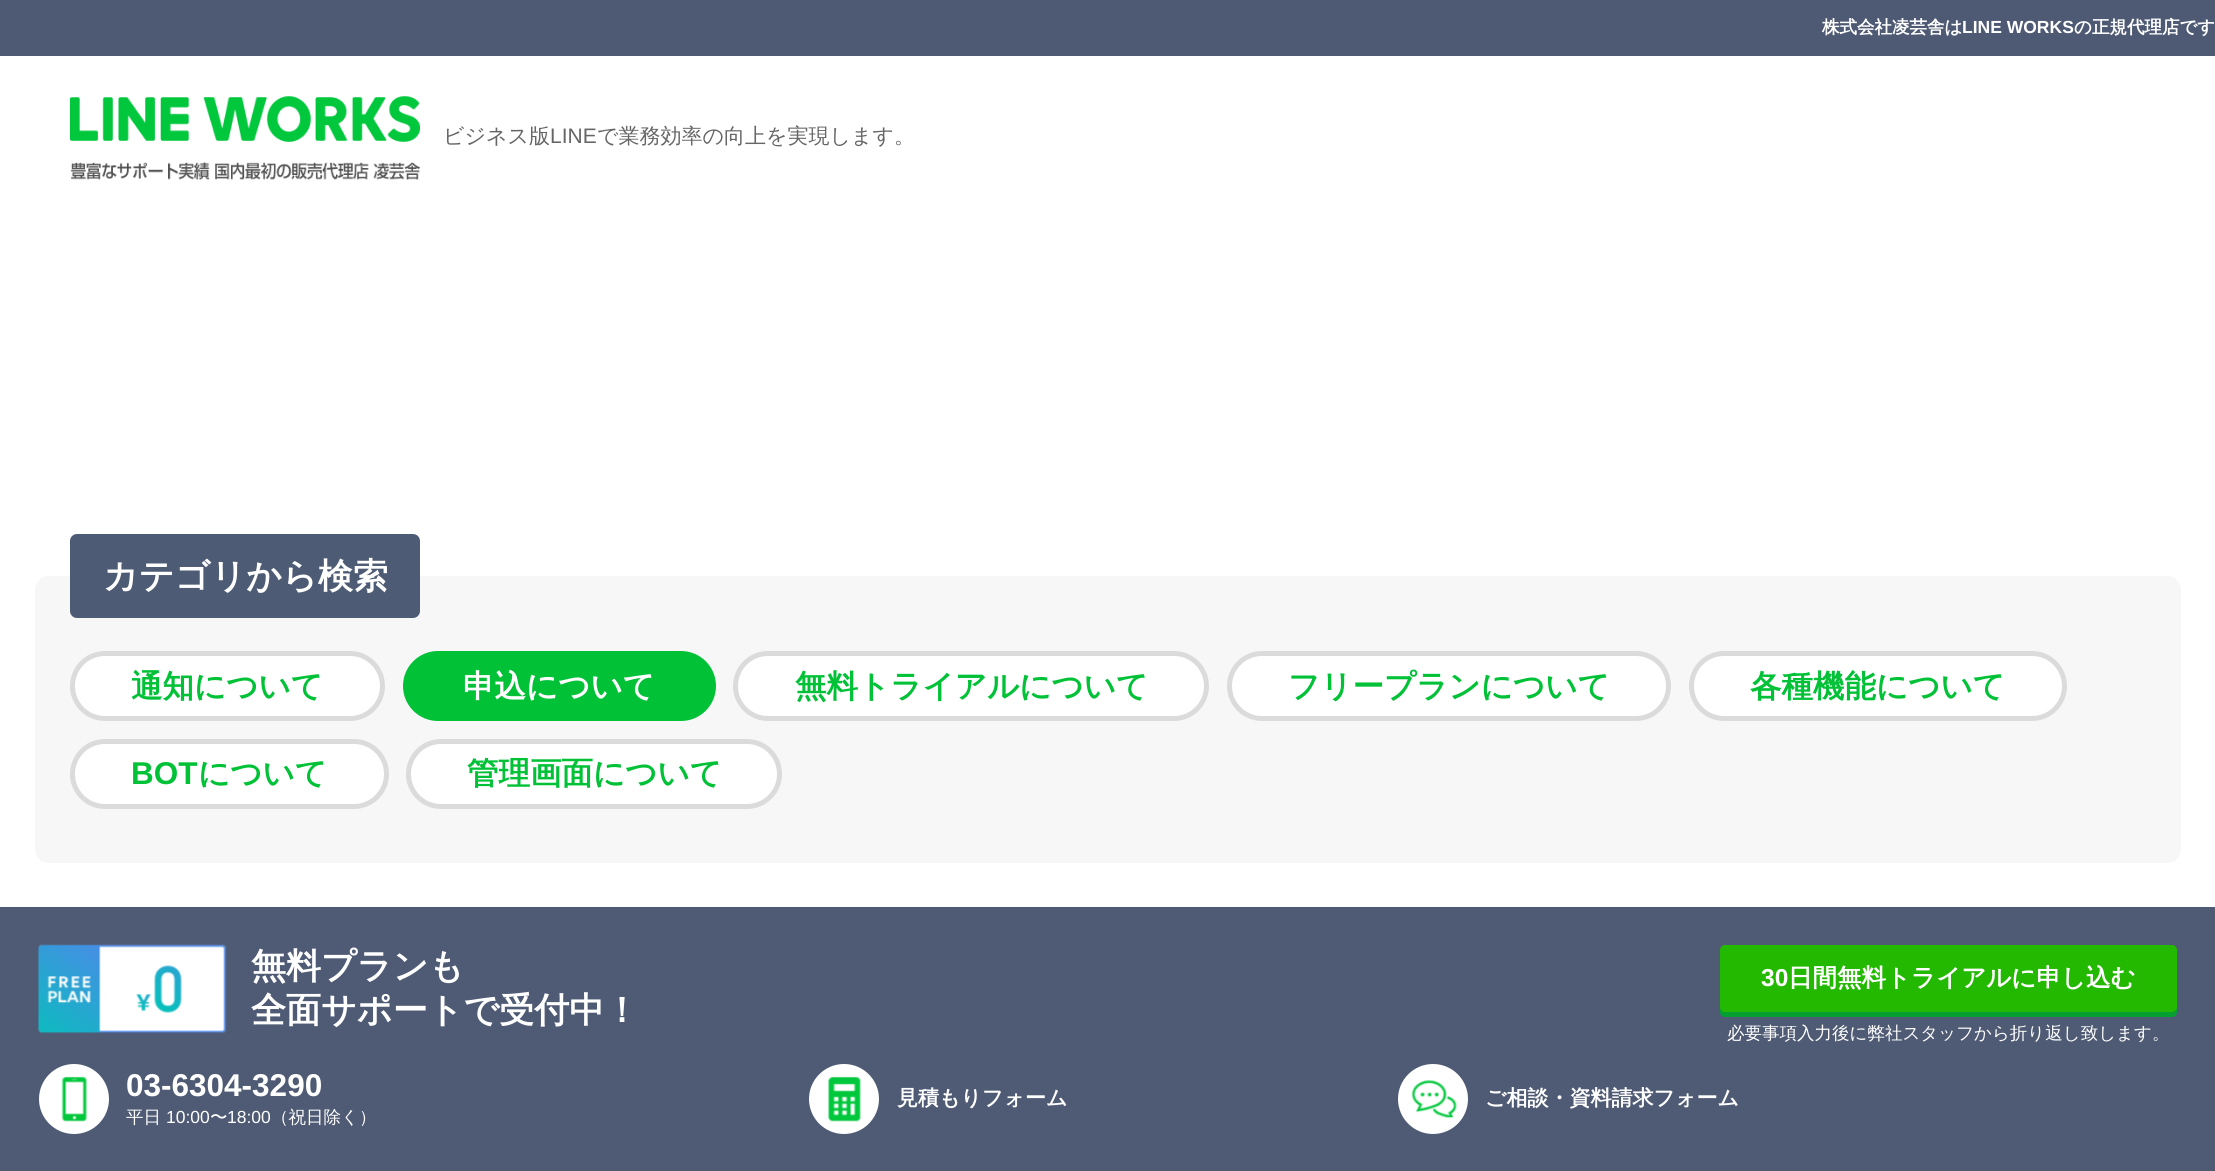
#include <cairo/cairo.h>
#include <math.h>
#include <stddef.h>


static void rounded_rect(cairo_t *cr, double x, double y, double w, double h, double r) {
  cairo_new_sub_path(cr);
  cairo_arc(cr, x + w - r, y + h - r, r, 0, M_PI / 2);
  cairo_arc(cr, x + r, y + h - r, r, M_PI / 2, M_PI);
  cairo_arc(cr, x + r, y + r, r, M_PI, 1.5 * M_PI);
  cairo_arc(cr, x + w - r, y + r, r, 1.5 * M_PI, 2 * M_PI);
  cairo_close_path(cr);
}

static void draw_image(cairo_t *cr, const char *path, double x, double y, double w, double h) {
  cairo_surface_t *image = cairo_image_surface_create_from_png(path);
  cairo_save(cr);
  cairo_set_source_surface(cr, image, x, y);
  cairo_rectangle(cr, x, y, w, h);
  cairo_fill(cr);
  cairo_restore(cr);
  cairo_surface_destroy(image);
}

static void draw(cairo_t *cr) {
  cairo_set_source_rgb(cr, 1, 1, 1);
  cairo_paint(cr);
  cairo_set_source_rgb(cr, 78 / 255.0, 90 / 255.0, 116 / 255.0);
  cairo_rectangle(cr, 0, 0, 2215, 56);
  cairo_fill(cr);
  draw_image(cr, "images/1.png", 70, 96, 350, 84);
  cairo_set_source_rgb(cr, 247 / 255.0, 247 / 255.0, 247 / 255.0);
  rounded_rect(cr, 35, 576, 2146, 287, 14);
  cairo_fill(cr);
  cairo_set_source_rgb(cr, 78 / 255.0, 91 / 255.0, 116 / 255.0);
  rounded_rect(cr, 70, 534, 350, 84, 7);
  cairo_fill(cr);
  cairo_set_source_rgb(cr, 1, 1, 1);
  rounded_rect(cr, 72.5, 653.5, 310, 65, 32.5);
  cairo_fill_preserve(cr);
  cairo_set_source_rgb(cr, 219 / 255.0, 219 / 255.0, 219 / 255.0);
  cairo_set_line_width(cr, 5);
  cairo_stroke(cr);
  cairo_set_source_rgb(cr, 1 / 255.0, 193 / 255.0, 55 / 255.0);
  rounded_rect(cr, 405.5, 653.5, 308, 65, 32.5);
  cairo_fill_preserve(cr);
  cairo_stroke(cr);
  cairo_set_source_rgb(cr, 1, 1, 1);
  rounded_rect(cr, 735.5, 653.5, 471, 65, 32.5);
  cairo_fill_preserve(cr);
  cairo_set_source_rgb(cr, 219 / 255.0, 219 / 255.0, 219 / 255.0);
  cairo_stroke(cr);
  cairo_set_source_rgb(cr, 1, 1, 1);
  rounded_rect(cr, 1229.5, 653.5, 439, 65, 32.5);
  cairo_fill_preserve(cr);
  cairo_set_source_rgb(cr, 219 / 255.0, 219 / 255.0, 219 / 255.0);
  cairo_stroke(cr);
  cairo_set_source_rgb(cr, 1, 1, 1);
  rounded_rect(cr, 1691.5, 653.5, 373, 65, 32.5);
  cairo_fill_preserve(cr);
  cairo_set_source_rgb(cr, 219 / 255.0, 219 / 255.0, 219 / 255.0);
  cairo_stroke(cr);
  cairo_set_source_rgb(cr, 1, 1, 1);
  rounded_rect(cr, 72.5, 741.5, 314, 65, 32.5);
  cairo_fill_preserve(cr);
  cairo_set_source_rgb(cr, 219 / 255.0, 219 / 255.0, 219 / 255.0);
  cairo_stroke(cr);
  cairo_set_source_rgb(cr, 1, 1, 1);
  rounded_rect(cr, 408.5, 741.5, 371, 65, 32.5);
  cairo_fill_preserve(cr);
  cairo_set_source_rgb(cr, 219 / 255.0, 219 / 255.0, 219 / 255.0);
  cairo_stroke(cr);
  cairo_set_source_rgb(cr, 79 / 255.0, 91 / 255.0, 116 / 255.0);
  cairo_rectangle(cr, 0, 907, 2215, 264);
  cairo_fill(cr);
  draw_image(cr, "images/2.png", 38, 944, 189, 90);
  cairo_set_source_rgb(cr, 4 / 255.0, 159 / 255.0, 48 / 255.0);
  cairo_new_path(cr);
  cairo_move_to(cr, 1720, 953);
  cairo_line_to(cr, 1720, 1012);
  cairo_curve_to(cr, 1720, 1015, 1722, 1017, 1725, 1017);
  cairo_line_to(cr, 2172, 1017);
  cairo_curve_to(cr, 2175, 1017, 2177, 1015, 2177, 1012);
  cairo_line_to(cr, 2177, 1006);
  cairo_curve_to(cr, 2177, 1009, 2175, 1012, 2172, 1012);
  cairo_line_to(cr, 1726, 1012);
  cairo_curve_to(cr, 1723, 1012, 1720, 1009, 1720, 1006);
  cairo_close_path(cr);
  cairo_fill(cr);
  cairo_set_source_rgb(cr, 34 / 255.0, 185 / 255.0, 0);
  rounded_rect(cr, 1720, 945, 457, 67, 5);
  cairo_fill(cr);
  cairo_set_source_rgb(cr, 1, 1, 1);
  cairo_arc(cr, 74, 1099, 35, 0, 2 * M_PI);
  cairo_fill(cr);
  draw_image(cr, "images/3.png", 61, 1076, 27, 46);
  cairo_arc(cr, 844, 1099, 35, 0, 2 * M_PI);
  cairo_fill(cr);
  draw_image(cr, "images/4.png", 828, 1076, 33, 46);
  cairo_arc(cr, 1433, 1099, 35, 0, 2 * M_PI);
  cairo_fill(cr);
  draw_image(cr, "images/5.png", 1411, 1080, 46, 39);
  cairo_select_font_face(cr, "WenQuanYi Zen Hei", CAIRO_FONT_SLANT_NORMAL, CAIRO_FONT_WEIGHT_BOLD);
  cairo_set_font_size(cr, 17.5);
  cairo_move_to(cr, 1822, 33);
  cairo_show_text(cr, "株式会社凌芸舎は");
  cairo_select_font_face(cr, "Liberation Sans", CAIRO_FONT_SLANT_NORMAL, CAIRO_FONT_WEIGHT_BOLD);
  cairo_move_to(cr, 1962, 33);
  cairo_show_text(cr, "LINE WORKS");
  cairo_select_font_face(cr, "WenQuanYi Zen Hei", CAIRO_FONT_SLANT_NORMAL, CAIRO_FONT_WEIGHT_BOLD);
  cairo_move_to(cr, 2074, 33);
  cairo_show_text(cr, "の正規代理店です");
  cairo_select_font_face(cr, "WenQuanYi Zen Hei Medium", CAIRO_FONT_SLANT_NORMAL, CAIRO_FONT_WEIGHT_NORMAL);
  cairo_set_font_size(cr, 21);
  cairo_set_source_rgb(cr, 102 / 255.0, 102 / 255.0, 102 / 255.0);
  cairo_move_to(cr, 443, 143);
  cairo_show_text(cr, "ビジネス版");
  cairo_select_font_face(cr, "Liberation Sans", CAIRO_FONT_SLANT_NORMAL, CAIRO_FONT_WEIGHT_NORMAL);
  cairo_move_to(cr, 550, 143);
  cairo_show_text(cr, "LINE");
  cairo_select_font_face(cr, "WenQuanYi Zen Hei Medium", CAIRO_FONT_SLANT_NORMAL, CAIRO_FONT_WEIGHT_NORMAL);
  cairo_move_to(cr, 597, 143);
  cairo_show_text(cr, "で業務効率の向上を実現します。");
  cairo_select_font_face(cr, "WenQuanYi Zen Hei", CAIRO_FONT_SLANT_NORMAL, CAIRO_FONT_WEIGHT_BOLD);
  cairo_set_font_size(cr, 35);
  cairo_set_source_rgb(cr, 1, 1, 1);
  cairo_move_to(cr, 103, 588);
  cairo_show_text(cr, "カテゴリから検索");
  cairo_set_font_size(cr, 31.5);
  cairo_set_source_rgb(cr, 1 / 255.0, 193 / 255.0, 55 / 255.0);
  cairo_move_to(cr, 131, 697);
  cairo_show_text(cr, "通知について");
  cairo_set_source_rgb(cr, 1, 1, 1);
  cairo_move_to(cr, 463, 697);
  cairo_show_text(cr, "申込について");
  cairo_set_source_rgb(cr, 1 / 255.0, 193 / 255.0, 55 / 255.0);
  cairo_move_to(cr, 795, 697);
  cairo_show_text(cr, "無料トライアルについて");
  cairo_move_to(cr, 1288, 697);
  cairo_show_text(cr, "フリープランについて");
  cairo_move_to(cr, 1750, 697);
  cairo_show_text(cr, "各種機能について");
  cairo_select_font_face(cr, "Liberation Sans", CAIRO_FONT_SLANT_NORMAL, CAIRO_FONT_WEIGHT_BOLD);
  cairo_move_to(cr, 131, 784);
  cairo_show_text(cr, "BOT");
  cairo_select_font_face(cr, "WenQuanYi Zen Hei", CAIRO_FONT_SLANT_NORMAL, CAIRO_FONT_WEIGHT_BOLD);
  cairo_move_to(cr, 198, 784);
  cairo_show_text(cr, "について");
  cairo_move_to(cr, 467, 784);
  cairo_show_text(cr, "管理画面について");
  cairo_set_font_size(cr, 35);
  cairo_set_source_rgb(cr, 1, 1, 1);
  cairo_move_to(cr, 251, 978);
  cairo_show_text(cr, "無料プランも");
  cairo_move_to(cr, 251, 1022);
  cairo_show_text(cr, "全面サポートで受付中！");
  cairo_select_font_face(cr, "Liberation Sans", CAIRO_FONT_SLANT_NORMAL, CAIRO_FONT_WEIGHT_BOLD);
  cairo_set_font_size(cr, 24.5);
  cairo_move_to(cr, 1761, 986);
  cairo_show_text(cr, "30");
  cairo_select_font_face(cr, "WenQuanYi Zen Hei", CAIRO_FONT_SLANT_NORMAL, CAIRO_FONT_WEIGHT_BOLD);
  cairo_move_to(cr, 1788, 986);
  cairo_show_text(cr, "日間無料トライアルに申し込む");
  cairo_select_font_face(cr, "WenQuanYi Zen Hei Medium", CAIRO_FONT_SLANT_NORMAL, CAIRO_FONT_WEIGHT_NORMAL);
  cairo_set_font_size(cr, 17.5);
  cairo_move_to(cr, 1727, 1039);
  cairo_show_text(cr, "必要事項入力後に弊社スタッフから折り返し致します。");
  cairo_select_font_face(cr, "Liberation Sans", CAIRO_FONT_SLANT_NORMAL, CAIRO_FONT_WEIGHT_BOLD);
  cairo_set_font_size(cr, 31.5);
  cairo_move_to(cr, 126, 1096);
  cairo_show_text(cr, "03-6304-3290");
  cairo_select_font_face(cr, "WenQuanYi Zen Hei Medium", CAIRO_FONT_SLANT_NORMAL, CAIRO_FONT_WEIGHT_NORMAL);
  cairo_set_font_size(cr, 17.5);
  cairo_move_to(cr, 126, 1123);
  cairo_show_text(cr, "平日");
  cairo_select_font_face(cr, "Liberation Sans", CAIRO_FONT_SLANT_NORMAL, CAIRO_FONT_WEIGHT_NORMAL);
  cairo_move_to(cr, 166, 1123);
  cairo_show_text(cr, "10:00");
  cairo_select_font_face(cr, "WenQuanYi Zen Hei Medium", CAIRO_FONT_SLANT_NORMAL, CAIRO_FONT_WEIGHT_NORMAL);
  cairo_move_to(cr, 210, 1123);
  cairo_show_text(cr, "〜");
  cairo_select_font_face(cr, "Liberation Sans", CAIRO_FONT_SLANT_NORMAL, CAIRO_FONT_WEIGHT_NORMAL);
  cairo_move_to(cr, 227, 1123);
  cairo_show_text(cr, "18:00");
  cairo_select_font_face(cr, "WenQuanYi Zen Hei Medium", CAIRO_FONT_SLANT_NORMAL, CAIRO_FONT_WEIGHT_NORMAL);
  cairo_move_to(cr, 271, 1123);
  cairo_show_text(cr, "（祝日除く）");
  cairo_select_font_face(cr, "WenQuanYi Zen Hei", CAIRO_FONT_SLANT_NORMAL, CAIRO_FONT_WEIGHT_BOLD);
  cairo_set_font_size(cr, 21);
  cairo_move_to(cr, 897, 1105);
  cairo_show_text(cr, "見積もりフォーム");
  cairo_move_to(cr, 1485, 1105);
  cairo_show_text(cr, "ご相談・資料請求フォーム");
}

int main(void) {
  cairo_surface_t *surface = cairo_image_surface_create(CAIRO_FORMAT_RGB24, 2215, 1171);
  cairo_t *cr = cairo_create(surface);
  cairo_font_options_t *options = cairo_font_options_create();
  cairo_font_options_set_hint_metrics(options, CAIRO_HINT_METRICS_OFF);
  cairo_font_options_set_hint_style(options, CAIRO_HINT_STYLE_NONE);
  cairo_set_font_options(cr, options);
  cairo_set_miter_limit(cr, 4);
  draw(cr);
  cairo_surface_write_to_png(surface, "out.png");
  cairo_font_options_destroy(options);
  cairo_destroy(cr);
  cairo_surface_destroy(surface);
  return 0;
}
